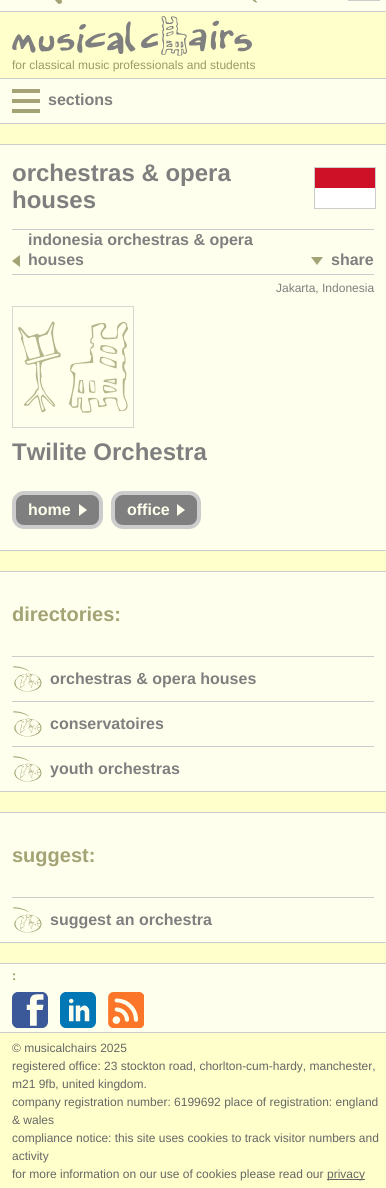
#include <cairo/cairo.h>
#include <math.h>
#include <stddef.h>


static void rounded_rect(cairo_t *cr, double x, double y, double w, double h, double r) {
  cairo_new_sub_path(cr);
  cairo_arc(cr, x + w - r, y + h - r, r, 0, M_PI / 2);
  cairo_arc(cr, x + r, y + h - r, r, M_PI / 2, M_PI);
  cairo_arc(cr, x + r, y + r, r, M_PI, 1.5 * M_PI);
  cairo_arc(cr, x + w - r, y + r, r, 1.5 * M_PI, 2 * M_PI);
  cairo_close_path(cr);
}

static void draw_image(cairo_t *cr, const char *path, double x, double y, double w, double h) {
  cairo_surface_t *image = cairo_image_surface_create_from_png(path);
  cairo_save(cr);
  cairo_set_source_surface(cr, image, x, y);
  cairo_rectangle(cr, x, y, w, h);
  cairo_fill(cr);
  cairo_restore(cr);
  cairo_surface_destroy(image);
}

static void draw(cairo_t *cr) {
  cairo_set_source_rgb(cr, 1, 1, 204 / 255.0);
  cairo_paint(cr);
  cairo_set_source_rgb(cr, 1, 1, 237 / 255.0);
  cairo_rectangle(cr, 0, 0, 386, 11);
  cairo_fill(cr);
  cairo_set_source_rgb(cr, 204 / 255.0, 204 / 255.0, 204 / 255.0);
  cairo_rectangle(cr, 0, 11, 386, 1);
  cairo_fill(cr);
  draw_image(cr, "images/1.png", 55, 0, 7, 4);
  draw_image(cr, "images/2.png", 252, 0, 6, 3);
  cairo_rectangle(cr, 348.5, -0.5, 31, 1);
  cairo_set_line_width(cr, 1);
  cairo_stroke(cr);
  draw_image(cr, "images/3.png", 12, 16, 240, 40);
  cairo_set_source_rgb(cr, 1, 1, 237 / 255.0);
  cairo_rectangle(cr, 0, 79, 386, 44);
  cairo_fill(cr);
  cairo_set_source_rgb(cr, 204 / 255.0, 204 / 255.0, 204 / 255.0);
  cairo_rectangle(cr, 0, 78, 386, 1);
  cairo_fill(cr);
  cairo_rectangle(cr, 0, 123, 386, 1);
  cairo_fill(cr);
  cairo_set_source_rgb(cr, 163 / 255.0, 163 / 255.0, 117 / 255.0);
  cairo_rectangle(cr, 12, 89, 28, 4);
  cairo_fill(cr);
  cairo_rectangle(cr, 12, 99, 28, 4);
  cairo_fill(cr);
  cairo_rectangle(cr, 12, 109, 28, 4);
  cairo_fill(cr);
  cairo_set_source_rgb(cr, 1, 1, 237 / 255.0);
  cairo_rectangle(cr, 0, 145, 386, 405);
  cairo_fill(cr);
  cairo_set_source_rgb(cr, 204 / 255.0, 204 / 255.0, 204 / 255.0);
  cairo_rectangle(cr, 0, 144, 386, 1);
  cairo_fill(cr);
  cairo_rectangle(cr, 0, 550, 386, 1);
  cairo_fill(cr);
  cairo_rectangle(cr, 314.5, 167.5, 61, 41);
  cairo_stroke(cr);
  draw_image(cr, "images/4.png", 315, 168, 60, 40);
  cairo_rectangle(cr, 12, 229, 362, 1);
  cairo_fill(cr);
  cairo_set_source_rgb(cr, 163 / 255.0, 163 / 255.0, 117 / 255.0);
  cairo_new_path(cr);
  cairo_move_to(cr, 20, 255);
  cairo_line_to(cr, 20, 267);
  cairo_line_to(cr, 12, 261);
  cairo_close_path(cr);
  cairo_fill(cr);
  cairo_new_path(cr);
  cairo_move_to(cr, 311, 257);
  cairo_line_to(cr, 323, 257);
  cairo_line_to(cr, 317, 265);
  cairo_close_path(cr);
  cairo_fill(cr);
  cairo_set_source_rgb(cr, 204 / 255.0, 204 / 255.0, 204 / 255.0);
  cairo_rectangle(cr, 12, 274, 362, 1);
  cairo_fill(cr);
  cairo_rectangle(cr, 12.5, 306.5, 121, 121);
  cairo_set_source_rgb(cr, 214 / 255.0, 214 / 255.0, 211 / 255.0);
  cairo_stroke(cr);
  draw_image(cr, "images/5.png", 18, 321, 111, 92);
  cairo_set_source_rgb(cr, 204 / 255.0, 204 / 255.0, 204 / 255.0);
  rounded_rect(cr, 12, 491, 91, 38, 12);
  cairo_fill(cr);
  cairo_set_source_rgb(cr, 127 / 255.0, 127 / 255.0, 127 / 255.0);
  rounded_rect(cr, 16, 495, 83, 30, 8);
  cairo_fill(cr);
  cairo_set_source_rgb(cr, 1, 1, 237 / 255.0);
  cairo_new_path(cr);
  cairo_move_to(cr, 79, 516);
  cairo_line_to(cr, 79, 504);
  cairo_line_to(cr, 87, 510);
  cairo_close_path(cr);
  cairo_fill(cr);
  cairo_set_source_rgb(cr, 204 / 255.0, 204 / 255.0, 204 / 255.0);
  rounded_rect(cr, 111, 491, 90, 38, 12);
  cairo_fill(cr);
  cairo_set_source_rgb(cr, 127 / 255.0, 127 / 255.0, 127 / 255.0);
  rounded_rect(cr, 115, 495, 82, 30, 8);
  cairo_fill(cr);
  cairo_set_source_rgb(cr, 1, 1, 237 / 255.0);
  cairo_new_path(cr);
  cairo_move_to(cr, 177, 516);
  cairo_line_to(cr, 177, 504);
  cairo_line_to(cr, 185, 510);
  cairo_close_path(cr);
  cairo_fill(cr);
  cairo_rectangle(cr, 0, 572, 386, 219);
  cairo_fill(cr);
  cairo_set_source_rgb(cr, 204 / 255.0, 204 / 255.0, 204 / 255.0);
  cairo_rectangle(cr, 0, 571, 386, 1);
  cairo_fill(cr);
  cairo_rectangle(cr, 0, 791, 386, 1);
  cairo_fill(cr);
  cairo_rectangle(cr, 12, 656, 362, 1);
  cairo_fill(cr);
  draw_image(cr, "images/6.png", 12, 666, 30, 26);
  cairo_rectangle(cr, 12, 701, 362, 1);
  cairo_fill(cr);
  draw_image(cr, "images/7.png", 12, 711, 30, 26);
  cairo_rectangle(cr, 12, 746, 362, 1);
  cairo_fill(cr);
  draw_image(cr, "images/6.png", 12, 756, 30, 26);
  cairo_set_source_rgb(cr, 1, 1, 237 / 255.0);
  cairo_rectangle(cr, 0, 813, 386, 129);
  cairo_fill(cr);
  cairo_set_source_rgb(cr, 204 / 255.0, 204 / 255.0, 204 / 255.0);
  cairo_rectangle(cr, 0, 812, 386, 1);
  cairo_fill(cr);
  cairo_rectangle(cr, 0, 942, 386, 1);
  cairo_fill(cr);
  cairo_rectangle(cr, 12, 897, 362, 1);
  cairo_fill(cr);
  draw_image(cr, "images/6.png", 12, 907, 30, 26);
  cairo_set_source_rgb(cr, 1, 1, 237 / 255.0);
  cairo_rectangle(cr, 0, 964, 386, 68);
  cairo_fill(cr);
  cairo_set_source_rgb(cr, 204 / 255.0, 204 / 255.0, 204 / 255.0);
  cairo_rectangle(cr, 0, 963, 386, 1);
  cairo_fill(cr);
  cairo_rectangle(cr, 0, 1032, 386, 1);
  cairo_fill(cr);
  draw_image(cr, "images/8.png", 12, 992, 36, 36);
  draw_image(cr, "images/9.png", 60, 992, 36, 36);
  draw_image(cr, "images/10.png", 108, 992, 36, 36);
  cairo_set_source_rgb(cr, 102 / 255.0, 102 / 255.0, 102 / 255.0);
  cairo_rectangle(cr, 327, 1179, 38, 1);
  cairo_fill(cr);
  cairo_select_font_face(cr, "Liberation Sans", CAIRO_FONT_SLANT_NORMAL, CAIRO_FONT_WEIGHT_NORMAL);
  cairo_set_font_size(cr, 12);
  cairo_set_source_rgb(cr, 153 / 255.0, 153 / 255.0, 102 / 255.0);
  cairo_move_to(cr, 12, 69);
  cairo_show_text(cr, "for classical music professionals and students");
  cairo_select_font_face(cr, "Liberation Sans", CAIRO_FONT_SLANT_NORMAL, CAIRO_FONT_WEIGHT_BOLD);
  cairo_set_font_size(cr, 16);
  cairo_set_source_rgb(cr, 127 / 255.0, 127 / 255.0, 127 / 255.0);
  cairo_move_to(cr, 48, 105);
  cairo_show_text(cr, "sections");
  cairo_set_font_size(cr, 24);
  cairo_move_to(cr, 12, 181);
  cairo_show_text(cr, "orchestras & opera");
  cairo_move_to(cr, 12, 208);
  cairo_show_text(cr, "houses");
  cairo_set_font_size(cr, 16);
  cairo_move_to(cr, 28, 245);
  cairo_show_text(cr, "indonesia orchestras & opera");
  cairo_move_to(cr, 28, 265);
  cairo_show_text(cr, "houses");
  cairo_move_to(cr, 331, 265);
  cairo_show_text(cr, "share");
  cairo_select_font_face(cr, "Liberation Sans", CAIRO_FONT_SLANT_NORMAL, CAIRO_FONT_WEIGHT_NORMAL);
  cairo_set_font_size(cr, 12);
  cairo_move_to(cr, 276, 292);
  cairo_show_text(cr, "Jakarta, Indonesia");
  cairo_select_font_face(cr, "Liberation Sans", CAIRO_FONT_SLANT_NORMAL, CAIRO_FONT_WEIGHT_BOLD);
  cairo_set_font_size(cr, 24);
  cairo_move_to(cr, 12, 460);
  cairo_show_text(cr, "Twilite Orchestra");
  cairo_set_font_size(cr, 16);
  cairo_set_source_rgb(cr, 1, 1, 237 / 255.0);
  cairo_move_to(cr, 28, 515);
  cairo_show_text(cr, "home");
  cairo_move_to(cr, 127, 515);
  cairo_show_text(cr, "office");
  cairo_set_font_size(cr, 20);
  cairo_set_source_rgb(cr, 163 / 255.0, 163 / 255.0, 117 / 255.0);
  cairo_move_to(cr, 12, 621);
  cairo_show_text(cr, "directories:");
  cairo_set_font_size(cr, 16);
  cairo_set_source_rgb(cr, 127 / 255.0, 127 / 255.0, 127 / 255.0);
  cairo_move_to(cr, 50, 684);
  cairo_show_text(cr, "orchestras & opera houses");
  cairo_move_to(cr, 50, 729);
  cairo_show_text(cr, "conservatoires");
  cairo_move_to(cr, 50, 774);
  cairo_show_text(cr, "youth orchestras");
  cairo_set_font_size(cr, 20);
  cairo_set_source_rgb(cr, 163 / 255.0, 163 / 255.0, 117 / 255.0);
  cairo_move_to(cr, 12, 862);
  cairo_show_text(cr, "suggest:");
  cairo_set_font_size(cr, 16);
  cairo_set_source_rgb(cr, 127 / 255.0, 127 / 255.0, 127 / 255.0);
  cairo_move_to(cr, 50, 925);
  cairo_show_text(cr, "suggest an orchestra");
  cairo_set_font_size(cr, 13);
  cairo_set_source_rgb(cr, 153 / 255.0, 153 / 255.0, 102 / 255.0);
  cairo_move_to(cr, 12, 980);
  cairo_show_text(cr, ":");
  cairo_select_font_face(cr, "Liberation Sans", CAIRO_FONT_SLANT_NORMAL, CAIRO_FONT_WEIGHT_NORMAL);
  cairo_set_font_size(cr, 12);
  cairo_set_source_rgb(cr, 102 / 255.0, 102 / 255.0, 102 / 255.0);
  cairo_move_to(cr, 12, 1052);
  cairo_show_text(cr, "© musicalchairs 2025");
  cairo_move_to(cr, 12, 1070);
  cairo_show_text(cr, "registered office: 23 stockton road, chorlton-cum-hardy, manchester,");
  cairo_move_to(cr, 12, 1088);
  cairo_show_text(cr, "m21 9fb, united kingdom.");
  cairo_move_to(cr, 12, 1106);
  cairo_show_text(cr, "company registration number: 6199692 place of registration: england");
  cairo_move_to(cr, 12, 1124);
  cairo_show_text(cr, "& wales");
  cairo_move_to(cr, 12, 1142);
  cairo_show_text(cr, "compliance notice: this site uses cookies to track visitor numbers and");
  cairo_move_to(cr, 12, 1160);
  cairo_show_text(cr, "activity");
  cairo_move_to(cr, 12, 1178);
  cairo_show_text(cr, "for more information on our use of cookies please read our");
  cairo_move_to(cr, 327, 1178);
  cairo_show_text(cr, "privacy");
}

int main(void) {
  cairo_surface_t *surface = cairo_image_surface_create(CAIRO_FORMAT_RGB24, 386, 1188);
  cairo_t *cr = cairo_create(surface);
  cairo_font_options_t *options = cairo_font_options_create();
  cairo_font_options_set_hint_metrics(options, CAIRO_HINT_METRICS_OFF);
  cairo_font_options_set_hint_style(options, CAIRO_HINT_STYLE_NONE);
  cairo_set_font_options(cr, options);
  cairo_set_miter_limit(cr, 4);
  draw(cr);
  cairo_surface_write_to_png(surface, "out.png");
  cairo_font_options_destroy(options);
  cairo_destroy(cr);
  cairo_surface_destroy(surface);
  return 0;
}
